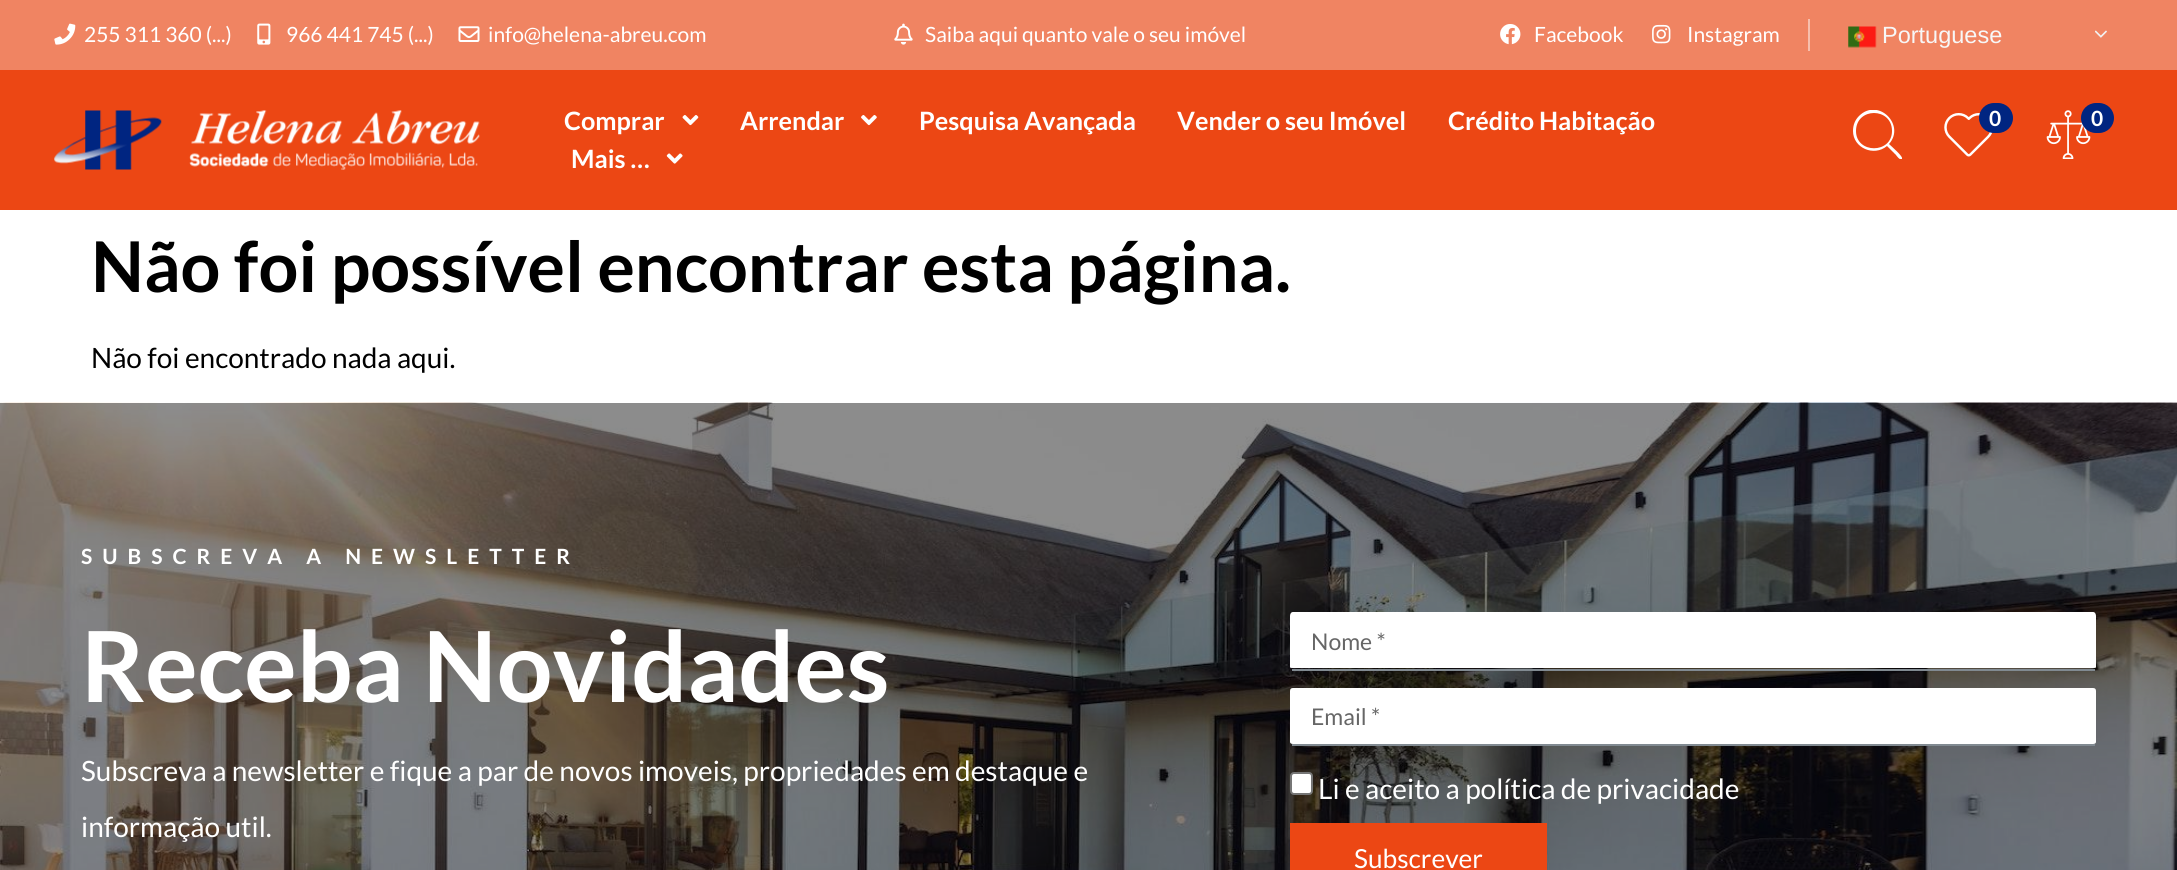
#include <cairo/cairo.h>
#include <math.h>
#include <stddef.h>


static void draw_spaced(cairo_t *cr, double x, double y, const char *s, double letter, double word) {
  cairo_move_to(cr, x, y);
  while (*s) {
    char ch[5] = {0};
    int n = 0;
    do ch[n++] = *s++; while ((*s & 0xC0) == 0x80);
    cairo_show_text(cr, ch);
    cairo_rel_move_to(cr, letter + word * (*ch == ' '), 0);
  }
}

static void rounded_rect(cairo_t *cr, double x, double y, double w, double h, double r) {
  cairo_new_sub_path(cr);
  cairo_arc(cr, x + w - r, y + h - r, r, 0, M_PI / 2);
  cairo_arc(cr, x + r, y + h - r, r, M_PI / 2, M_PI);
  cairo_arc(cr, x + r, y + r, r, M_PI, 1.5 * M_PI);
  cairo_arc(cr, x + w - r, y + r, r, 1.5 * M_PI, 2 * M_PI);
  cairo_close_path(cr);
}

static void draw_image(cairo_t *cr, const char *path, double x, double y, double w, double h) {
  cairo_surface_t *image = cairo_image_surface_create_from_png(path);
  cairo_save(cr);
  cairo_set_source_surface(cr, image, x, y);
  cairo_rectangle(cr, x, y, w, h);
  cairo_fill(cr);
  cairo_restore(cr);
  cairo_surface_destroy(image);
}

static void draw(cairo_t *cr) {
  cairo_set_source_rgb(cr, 1, 1, 1);
  cairo_paint(cr);
  cairo_set_source_rgb(cr, 240 / 255.0, 132 / 255.0, 98 / 255.0);
  cairo_rectangle(cr, 0, 0, 2177, 70);
  cairo_fill(cr);
  draw_image(cr, "images/1.png", 54, 23, 22, 22);
  draw_image(cr, "images/2.png", 257, 23, 14, 22);
  draw_image(cr, "images/3.png", 458, 26, 22, 16);
  draw_image(cr, "images/4.png", 894, 23, 19, 22);
  cairo_set_source_rgb(cr, 247 / 255.0, 191 / 255.0, 173 / 255.0);
  cairo_rectangle(cr, 1808, 19, 2, 32);
  cairo_fill(cr);
  draw_image(cr, "images/5.png", 1500, 24, 21, 21);
  draw_image(cr, "images/6.png", 1652, 24, 19, 20);
  draw_image(cr, "images/7.png", 1848, 26, 29, 22);
  draw_image(cr, "images/8.png", 2095, 30, 12, 8);
  cairo_set_source_rgb(cr, 236 / 255.0, 71 / 255.0, 20 / 255.0);
  cairo_rectangle(cr, 0, 70, 2177, 140);
  cairo_fill(cr);
  draw_image(cr, "images/9.png", 54, 110, 426, 60);
  draw_image(cr, "images/10.png", 682, 115, 17, 11);
  draw_image(cr, "images/11.png", 861, 115, 16, 11);
  draw_image(cr, "images/12.png", 666, 153, 17, 11);
  cairo_save(cr);
  cairo_rectangle(cr, 1853, 110, 49, 49);
  cairo_clip(cr);
  cairo_set_source_rgb(cr, 1, 1, 1);
  cairo_new_path(cr);
  cairo_move_to(cr, 1853, 131);
  cairo_curve_to(cr, 1853, 148, 1874, 157, 1887, 146);
  cairo_line_to(cr, 1896, 155);
  cairo_curve_to(cr, 1896, 155, 1900, 161, 1902, 159);
  cairo_curve_to(cr, 1904, 157, 1891, 146, 1889, 144);
  cairo_curve_to(cr, 1906, 125, 1878, 97, 1859, 116);
  cairo_curve_to(cr, 1855, 120, 1853, 125, 1853, 131);
  cairo_close_path(cr);
  cairo_move_to(cr, 1892, 131);
  cairo_curve_to(cr, 1892, 154, 1856, 154, 1856, 131);
  cairo_curve_to(cr, 1856, 107, 1892, 107, 1892, 131);
  cairo_close_path(cr);
  cairo_fill(cr);
  cairo_restore(cr);
  draw_image(cr, "images/13.png", 1944, 113, 49, 44);
  cairo_set_source_rgb(cr, 0, 37 / 255.0, 129 / 255.0);
  rounded_rect(cr, 1979, 103, 34, 30, 15);
  cairo_fill(cr);
  draw_image(cr, "images/14.png", 2046, 110, 45, 49);
  rounded_rect(cr, 2081, 103, 33, 30, 15);
  cairo_fill(cr);
  draw_image(cr, "images/15.png", 0, 402, 2177, 468);
  cairo_set_source_rgb(cr, 1, 1, 1);
  cairo_new_path(cr);
  cairo_move_to(cr, 1293, 612);
  cairo_line_to(cr, 2093, 612);
  cairo_curve_to(cr, 2095, 612, 2096, 614, 2096, 616);
  cairo_line_to(cr, 2096, 667);
  cairo_curve_to(cr, 2096, 668, 2095, 668, 2093, 668);
  cairo_line_to(cr, 1293, 668);
  cairo_curve_to(cr, 1291, 668, 1290, 668, 1290, 667);
  cairo_line_to(cr, 1290, 616);
  cairo_curve_to(cr, 1290, 614, 1291, 612, 1293, 612);
  cairo_close_path(cr);
  cairo_fill(cr);
  cairo_set_source_rgb(cr, 129 / 255.0, 138 / 255.0, 145 / 255.0);
  cairo_rectangle(cr, 1292, 669, 803, 2);
  cairo_fill(cr);
  cairo_set_source_rgb(cr, 1, 1, 1);
  cairo_new_path(cr);
  cairo_move_to(cr, 1293, 688);
  cairo_line_to(cr, 2093, 688);
  cairo_curve_to(cr, 2095, 688, 2096, 689, 2096, 691);
  cairo_line_to(cr, 2096, 742);
  cairo_curve_to(cr, 2096, 743, 2095, 744, 2093, 744);
  cairo_line_to(cr, 1293, 744);
  cairo_curve_to(cr, 1291, 744, 1290, 743, 1290, 742);
  cairo_line_to(cr, 1290, 691);
  cairo_curve_to(cr, 1290, 689, 1291, 688, 1293, 688);
  cairo_close_path(cr);
  cairo_fill(cr);
  cairo_set_source_rgb(cr, 129 / 255.0, 138 / 255.0, 145 / 255.0);
  cairo_rectangle(cr, 1292, 744, 803, 2);
  cairo_fill(cr);
  cairo_set_source_rgb(cr, 1, 1, 1);
  rounded_rect(cr, 1291, 773, 21, 21, 3);
  cairo_fill_preserve(cr);
  cairo_set_source_rgb(cr, 118 / 255.0, 118 / 255.0, 118 / 255.0);
  cairo_stroke(cr);
  cairo_set_source_rgb(cr, 236 / 255.0, 71 / 255.0, 20 / 255.0);
  cairo_rectangle(cr, 1290, 823, 257, 47);
  cairo_fill(cr);
  cairo_select_font_face(cr, "Lato", CAIRO_FONT_SLANT_NORMAL, CAIRO_FONT_WEIGHT_NORMAL);
  cairo_set_font_size(cr, 21);
  cairo_set_source_rgb(cr, 1, 1, 1);
  cairo_move_to(cr, 84, 42);
  cairo_show_text(cr, "255 311 360 (...)");
  cairo_move_to(cr, 286, 42);
  cairo_show_text(cr, "966 441 745 (...)");
  cairo_move_to(cr, 488, 42);
  cairo_show_text(cr, "info@helena-abreu.com");
  cairo_move_to(cr, 925, 42);
  cairo_show_text(cr, "Saiba aqui quanto vale o seu imóvel");
  cairo_move_to(cr, 1534, 42);
  cairo_show_text(cr, "Facebook");
  cairo_move_to(cr, 1687, 42);
  cairo_show_text(cr, "Instagram");
  cairo_select_font_face(cr, "Liberation Sans", CAIRO_FONT_SLANT_NORMAL, CAIRO_FONT_WEIGHT_NORMAL);
  cairo_set_font_size(cr, 23.5);
  cairo_set_source_rgb(cr, 247 / 255.0, 247 / 255.0, 247 / 255.0);
  cairo_move_to(cr, 1882, 43);
  cairo_show_text(cr, "Portuguese");
  cairo_select_font_face(cr, "Lato", CAIRO_FONT_SLANT_NORMAL, CAIRO_FONT_WEIGHT_BOLD);
  cairo_set_font_size(cr, 25.25);
  cairo_set_source_rgb(cr, 1, 1, 1);
  cairo_move_to(cr, 564, 130);
  cairo_show_text(cr, "Comprar");
  cairo_move_to(cr, 740, 130);
  cairo_show_text(cr, "Arrendar");
  cairo_move_to(cr, 919, 130);
  cairo_show_text(cr, "Pesquisa Avançada");
  cairo_move_to(cr, 1177, 130);
  cairo_show_text(cr, "Vender o seu Imóvel");
  cairo_move_to(cr, 1448, 130);
  cairo_show_text(cr, "Crédito Habitação");
  cairo_move_to(cr, 571, 168);
  cairo_show_text(cr, "Mais …");
  cairo_set_font_size(cr, 21);
  cairo_move_to(cr, 1989, 126);
  cairo_show_text(cr, "0");
  cairo_move_to(cr, 2091, 126);
  cairo_show_text(cr, "0");
  cairo_set_font_size(cr, 70);
  cairo_set_source_rgb(cr, 0, 0, 0);
  cairo_move_to(cr, 91, 292);
  cairo_show_text(cr, "Não foi possível encontrar esta página.");
  cairo_select_font_face(cr, "Lato", CAIRO_FONT_SLANT_NORMAL, CAIRO_FONT_WEIGHT_NORMAL);
  cairo_set_font_size(cr, 28);
  cairo_move_to(cr, 91, 368);
  cairo_show_text(cr, "Não foi encontrado nada aqui.");
  cairo_select_font_face(cr, "Lato", CAIRO_FONT_SLANT_NORMAL, CAIRO_FONT_WEIGHT_BOLD);
  cairo_set_font_size(cr, 21);
  cairo_set_source_rgb(cr, 1, 1, 1);
  draw_spaced(cr, 81, 564, "SUBSCREVA A NEWSLETTER", 10, 0);
  cairo_set_font_size(cr, 98);
  cairo_move_to(cr, 81, 702);
  cairo_show_text(cr, "Receba Novidades");
  cairo_select_font_face(cr, "Lato", CAIRO_FONT_SLANT_NORMAL, CAIRO_FONT_WEIGHT_NORMAL);
  cairo_set_font_size(cr, 28);
  cairo_move_to(cr, 81, 781);
  cairo_show_text(cr, "Subscreva a newsletter e fique a par de novos imoveis, propriedades em destaque e");
  cairo_move_to(cr, 81, 837);
  cairo_show_text(cr, "informação util.");
  cairo_set_font_size(cr, 23);
  cairo_set_source_rgb(cr, 102 / 255.0, 102 / 255.0, 102 / 255.0);
  cairo_move_to(cr, 1311, 650);
  cairo_show_text(cr, "Nome *");
  cairo_move_to(cr, 1311, 725);
  cairo_show_text(cr, "Email *");
  cairo_set_font_size(cr, 28);
  cairo_set_source_rgb(cr, 1, 1, 1);
  cairo_move_to(cr, 1318, 799);
  cairo_show_text(cr, "Li e aceito a política de privacidade");
  cairo_set_font_size(cr, 26.25);
  cairo_move_to(cr, 1354, 868);
  cairo_show_text(cr, "Subscrever");
}

int main(void) {
  cairo_surface_t *surface = cairo_image_surface_create(CAIRO_FORMAT_RGB24, 2177, 870);
  cairo_t *cr = cairo_create(surface);
  cairo_font_options_t *options = cairo_font_options_create();
  cairo_font_options_set_hint_metrics(options, CAIRO_HINT_METRICS_OFF);
  cairo_font_options_set_hint_style(options, CAIRO_HINT_STYLE_NONE);
  cairo_set_font_options(cr, options);
  cairo_set_miter_limit(cr, 4);
  draw(cr);
  cairo_surface_write_to_png(surface, "out.png");
  cairo_font_options_destroy(options);
  cairo_destroy(cr);
  cairo_surface_destroy(surface);
  return 0;
}
